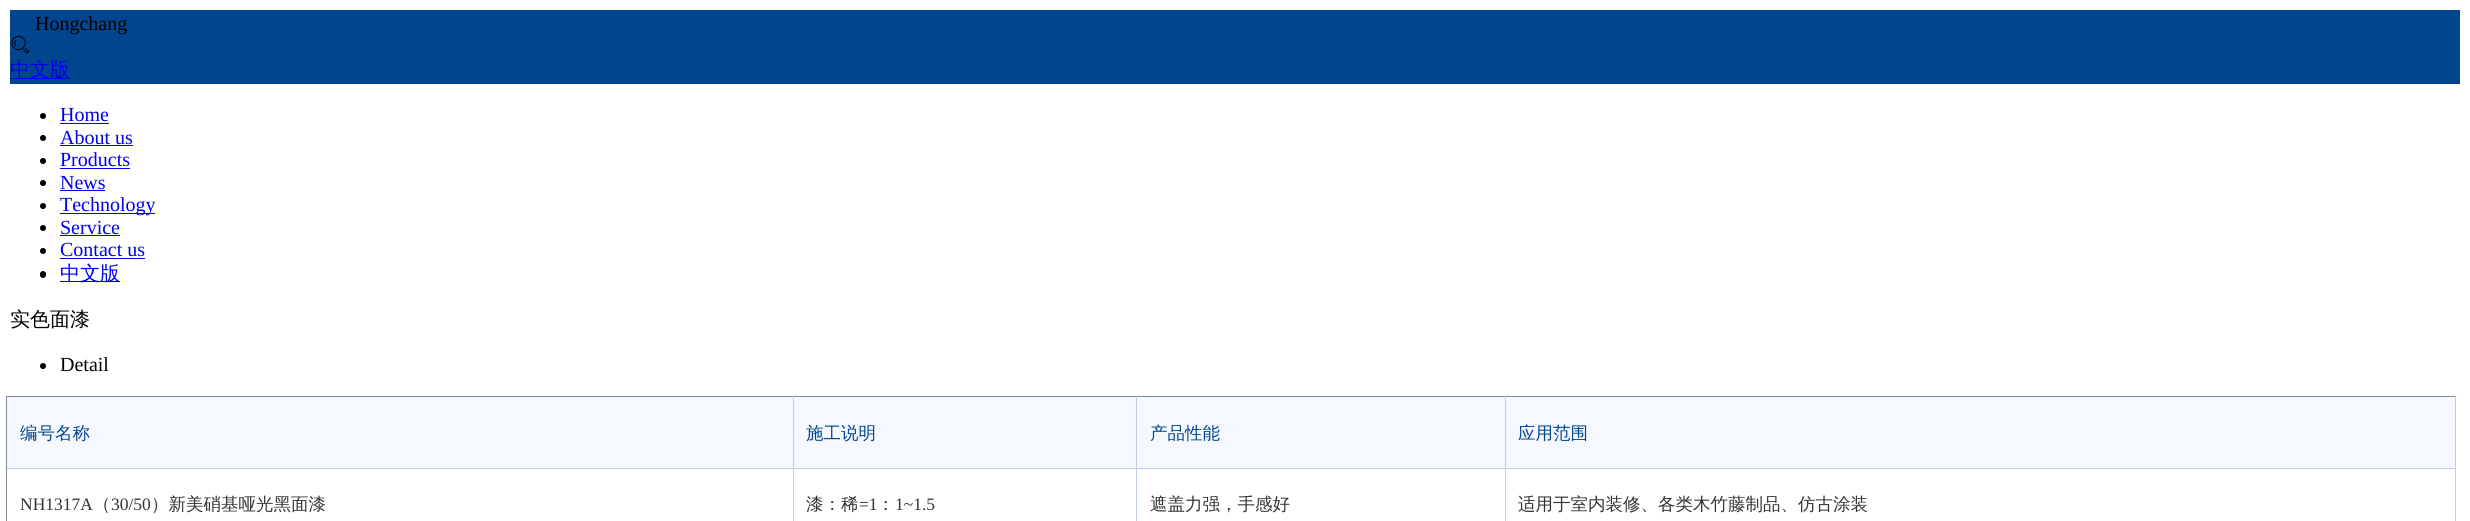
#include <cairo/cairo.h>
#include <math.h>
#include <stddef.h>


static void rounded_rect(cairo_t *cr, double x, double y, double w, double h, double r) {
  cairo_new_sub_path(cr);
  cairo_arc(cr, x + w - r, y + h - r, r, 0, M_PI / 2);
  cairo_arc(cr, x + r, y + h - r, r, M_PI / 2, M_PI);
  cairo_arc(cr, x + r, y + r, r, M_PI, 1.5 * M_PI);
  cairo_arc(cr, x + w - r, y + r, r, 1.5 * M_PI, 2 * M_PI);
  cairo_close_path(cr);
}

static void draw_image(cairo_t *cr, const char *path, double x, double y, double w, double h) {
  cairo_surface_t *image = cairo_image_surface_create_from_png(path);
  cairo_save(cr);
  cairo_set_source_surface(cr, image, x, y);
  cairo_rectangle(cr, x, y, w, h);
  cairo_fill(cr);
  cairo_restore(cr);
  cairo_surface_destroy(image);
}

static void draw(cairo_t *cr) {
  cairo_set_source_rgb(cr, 1, 1, 1);
  cairo_paint(cr);
  cairo_set_source_rgb(cr, 1 / 255.0, 69 / 255.0, 142 / 255.0);
  cairo_rectangle(cr, 10, 10, 2450, 74);
  cairo_fill(cr);
  draw_image(cr, "images/1.png", 11, 35, 18, 19);
  cairo_set_source_rgb(cr, 0, 0, 238 / 255.0);
  cairo_rectangle(cr, 10, 78, 60, 1);
  cairo_fill(cr);
  cairo_set_source_rgb(cr, 0, 0, 0);
  cairo_arc(cr, 43, 116, 3, 0, 2 * M_PI);
  cairo_fill(cr);
  cairo_set_source_rgb(cr, 0, 0, 238 / 255.0);
  cairo_rectangle(cr, 60, 123, 49, 1);
  cairo_fill(cr);
  cairo_set_source_rgb(cr, 0, 0, 0);
  cairo_arc(cr, 43, 138, 3, 0, 2 * M_PI);
  cairo_fill(cr);
  cairo_set_source_rgb(cr, 0, 0, 238 / 255.0);
  cairo_rectangle(cr, 60, 145, 73, 1);
  cairo_fill(cr);
  cairo_set_source_rgb(cr, 0, 0, 0);
  cairo_arc(cr, 43, 161, 3, 0, 2 * M_PI);
  cairo_fill(cr);
  cairo_set_source_rgb(cr, 0, 0, 238 / 255.0);
  cairo_rectangle(cr, 60, 168, 70, 1);
  cairo_fill(cr);
  cairo_set_source_rgb(cr, 0, 0, 0);
  cairo_arc(cr, 43, 183, 3, 0, 2 * M_PI);
  cairo_fill(cr);
  cairo_set_source_rgb(cr, 0, 0, 238 / 255.0);
  cairo_rectangle(cr, 60, 190, 45, 1);
  cairo_fill(cr);
  cairo_set_source_rgb(cr, 0, 0, 0);
  cairo_arc(cr, 43, 206, 3, 0, 2 * M_PI);
  cairo_fill(cr);
  cairo_set_source_rgb(cr, 0, 0, 238 / 255.0);
  cairo_rectangle(cr, 60, 213, 95, 1);
  cairo_fill(cr);
  cairo_set_source_rgb(cr, 0, 0, 0);
  cairo_arc(cr, 43, 228, 3, 0, 2 * M_PI);
  cairo_fill(cr);
  cairo_set_source_rgb(cr, 0, 0, 238 / 255.0);
  cairo_rectangle(cr, 60, 235, 60, 1);
  cairo_fill(cr);
  cairo_set_source_rgb(cr, 0, 0, 0);
  cairo_arc(cr, 43, 251, 3, 0, 2 * M_PI);
  cairo_fill(cr);
  cairo_set_source_rgb(cr, 0, 0, 238 / 255.0);
  cairo_rectangle(cr, 60, 258, 85, 1);
  cairo_fill(cr);
  cairo_set_source_rgb(cr, 0, 0, 0);
  rounded_rect(cr, 40, 271, 6, 7, 3);
  cairo_fill(cr);
  cairo_set_source_rgb(cr, 0, 0, 238 / 255.0);
  cairo_rectangle(cr, 60, 281, 60, 1);
  cairo_fill(cr);
  cairo_set_source_rgb(cr, 0, 0, 0);
  cairo_arc(cr, 43, 366, 3, 0, 2 * M_PI);
  cairo_fill(cr);
  cairo_set_source_rgb(cr, 245 / 255.0, 248 / 255.0, 1);
  cairo_rectangle(cr, 7, 397, 786, 71);
  cairo_fill(cr);
  cairo_set_source_rgb(cr, 128 / 255.0, 137 / 255.0, 151 / 255.0);
  cairo_rectangle(cr, 6, 396, 2450, 1);
  cairo_fill(cr);
  cairo_set_source_rgb(cr, 192 / 255.0, 206 / 255.0, 227 / 255.0);
  cairo_rectangle(cr, 793, 396, 1, 125);
  cairo_fill(cr);
  cairo_rectangle(cr, 6, 468, 788, 1);
  cairo_fill(cr);
  cairo_set_source_rgb(cr, 128 / 255.0, 137 / 255.0, 151 / 255.0);
  cairo_rectangle(cr, 6, 396, 1, 125);
  cairo_fill(cr);
  cairo_set_source_rgb(cr, 245 / 255.0, 248 / 255.0, 1);
  cairo_rectangle(cr, 794, 397, 711, 71);
  cairo_fill(cr);
  cairo_set_source_rgb(cr, 192 / 255.0, 206 / 255.0, 227 / 255.0);
  cairo_rectangle(cr, 1136, 396, 1, 125);
  cairo_fill(cr);
  cairo_rectangle(cr, 794, 468, 344, 1);
  cairo_fill(cr);
  cairo_rectangle(cr, 1505, 396, 1, 125);
  cairo_fill(cr);
  cairo_rectangle(cr, 1138, 468, 368, 1);
  cairo_fill(cr);
  cairo_set_source_rgb(cr, 245 / 255.0, 248 / 255.0, 1);
  cairo_rectangle(cr, 1506, 397, 949, 71);
  cairo_fill(cr);
  cairo_set_source_rgb(cr, 192 / 255.0, 206 / 255.0, 227 / 255.0);
  cairo_rectangle(cr, 2455, 396, 1, 125);
  cairo_fill(cr);
  cairo_rectangle(cr, 1506, 468, 950, 1);
  cairo_fill(cr);
  cairo_select_font_face(cr, "Liberation Serif", CAIRO_FONT_SLANT_NORMAL, CAIRO_FONT_WEIGHT_NORMAL);
  cairo_set_font_size(cr, 20);
  cairo_set_source_rgb(cr, 0, 0, 0);
  cairo_move_to(cr, 35, 30);
  cairo_show_text(cr, "Hongchang");
  cairo_select_font_face(cr, "WenQuanYi Zen Hei Medium", CAIRO_FONT_SLANT_NORMAL, CAIRO_FONT_WEIGHT_NORMAL);
  cairo_set_source_rgb(cr, 0, 0, 238 / 255.0);
  cairo_move_to(cr, 10, 76);
  cairo_show_text(cr, "中文版");
  cairo_select_font_face(cr, "Liberation Serif", CAIRO_FONT_SLANT_NORMAL, CAIRO_FONT_WEIGHT_NORMAL);
  cairo_move_to(cr, 60, 121);
  cairo_show_text(cr, "Home");
  cairo_move_to(cr, 60, 144);
  cairo_show_text(cr, "About us");
  cairo_move_to(cr, 60, 166);
  cairo_show_text(cr, "Products");
  cairo_move_to(cr, 60, 189);
  cairo_show_text(cr, "News");
  cairo_move_to(cr, 60, 211);
  cairo_show_text(cr, "Technology");
  cairo_move_to(cr, 60, 234);
  cairo_show_text(cr, "Service");
  cairo_move_to(cr, 60, 256);
  cairo_show_text(cr, "Contact us");
  cairo_select_font_face(cr, "WenQuanYi Zen Hei Medium", CAIRO_FONT_SLANT_NORMAL, CAIRO_FONT_WEIGHT_NORMAL);
  cairo_move_to(cr, 60, 280);
  cairo_show_text(cr, "中文版");
  cairo_set_source_rgb(cr, 0, 0, 0);
  cairo_move_to(cr, 10, 326);
  cairo_show_text(cr, "实色面漆");
  cairo_select_font_face(cr, "Liberation Serif", CAIRO_FONT_SLANT_NORMAL, CAIRO_FONT_WEIGHT_NORMAL);
  cairo_move_to(cr, 60, 371);
  cairo_show_text(cr, "Detail");
  cairo_select_font_face(cr, "WenQuanYi Zen Hei Medium", CAIRO_FONT_SLANT_NORMAL, CAIRO_FONT_WEIGHT_NORMAL);
  cairo_set_font_size(cr, 17.5);
  cairo_set_source_rgb(cr, 0, 69 / 255.0, 142 / 255.0);
  cairo_move_to(cr, 20, 439);
  cairo_show_text(cr, "编号名称");
  cairo_move_to(cr, 806, 439);
  cairo_show_text(cr, "施工说明");
  cairo_move_to(cr, 1150, 439);
  cairo_show_text(cr, "产品性能");
  cairo_move_to(cr, 1518, 439);
  cairo_show_text(cr, "应用范围");
  cairo_select_font_face(cr, "Liberation Serif", CAIRO_FONT_SLANT_NORMAL, CAIRO_FONT_WEIGHT_NORMAL);
  cairo_set_source_rgb(cr, 51 / 255.0, 51 / 255.0, 51 / 255.0);
  cairo_move_to(cr, 20, 510);
  cairo_show_text(cr, "NH1317A");
  cairo_select_font_face(cr, "WenQuanYi Zen Hei Medium", CAIRO_FONT_SLANT_NORMAL, CAIRO_FONT_WEIGHT_NORMAL);
  cairo_move_to(cr, 93, 510);
  cairo_show_text(cr, "（");
  cairo_select_font_face(cr, "Liberation Serif", CAIRO_FONT_SLANT_NORMAL, CAIRO_FONT_WEIGHT_NORMAL);
  cairo_move_to(cr, 111, 510);
  cairo_show_text(cr, "30/50");
  cairo_select_font_face(cr, "WenQuanYi Zen Hei Medium", CAIRO_FONT_SLANT_NORMAL, CAIRO_FONT_WEIGHT_NORMAL);
  cairo_move_to(cr, 151, 510);
  cairo_show_text(cr, "）新美硝基哑光黑面漆");
  cairo_move_to(cr, 806, 510);
  cairo_show_text(cr, "漆：稀");
  cairo_select_font_face(cr, "Liberation Serif", CAIRO_FONT_SLANT_NORMAL, CAIRO_FONT_WEIGHT_NORMAL);
  cairo_move_to(cr, 859, 510);
  cairo_show_text(cr, "=1");
  cairo_select_font_face(cr, "WenQuanYi Zen Hei Medium", CAIRO_FONT_SLANT_NORMAL, CAIRO_FONT_WEIGHT_NORMAL);
  cairo_move_to(cr, 877, 510);
  cairo_show_text(cr, "：");
  cairo_select_font_face(cr, "Liberation Serif", CAIRO_FONT_SLANT_NORMAL, CAIRO_FONT_WEIGHT_NORMAL);
  cairo_move_to(cr, 895, 510);
  cairo_show_text(cr, "1~1.5");
  cairo_select_font_face(cr, "WenQuanYi Zen Hei Medium", CAIRO_FONT_SLANT_NORMAL, CAIRO_FONT_WEIGHT_NORMAL);
  cairo_move_to(cr, 1150, 510);
  cairo_show_text(cr, "遮盖力强，手感好");
  cairo_move_to(cr, 1518, 510);
  cairo_show_text(cr, "适用于室内装修、各类木竹藤制品、仿古涂装");
}

int main(void) {
  cairo_surface_t *surface = cairo_image_surface_create(CAIRO_FORMAT_RGB24, 2470, 521);
  cairo_t *cr = cairo_create(surface);
  cairo_font_options_t *options = cairo_font_options_create();
  cairo_font_options_set_hint_metrics(options, CAIRO_HINT_METRICS_OFF);
  cairo_font_options_set_hint_style(options, CAIRO_HINT_STYLE_NONE);
  cairo_set_font_options(cr, options);
  cairo_set_miter_limit(cr, 4);
  draw(cr);
  cairo_surface_write_to_png(surface, "out.png");
  cairo_font_options_destroy(options);
  cairo_destroy(cr);
  cairo_surface_destroy(surface);
  return 0;
}
